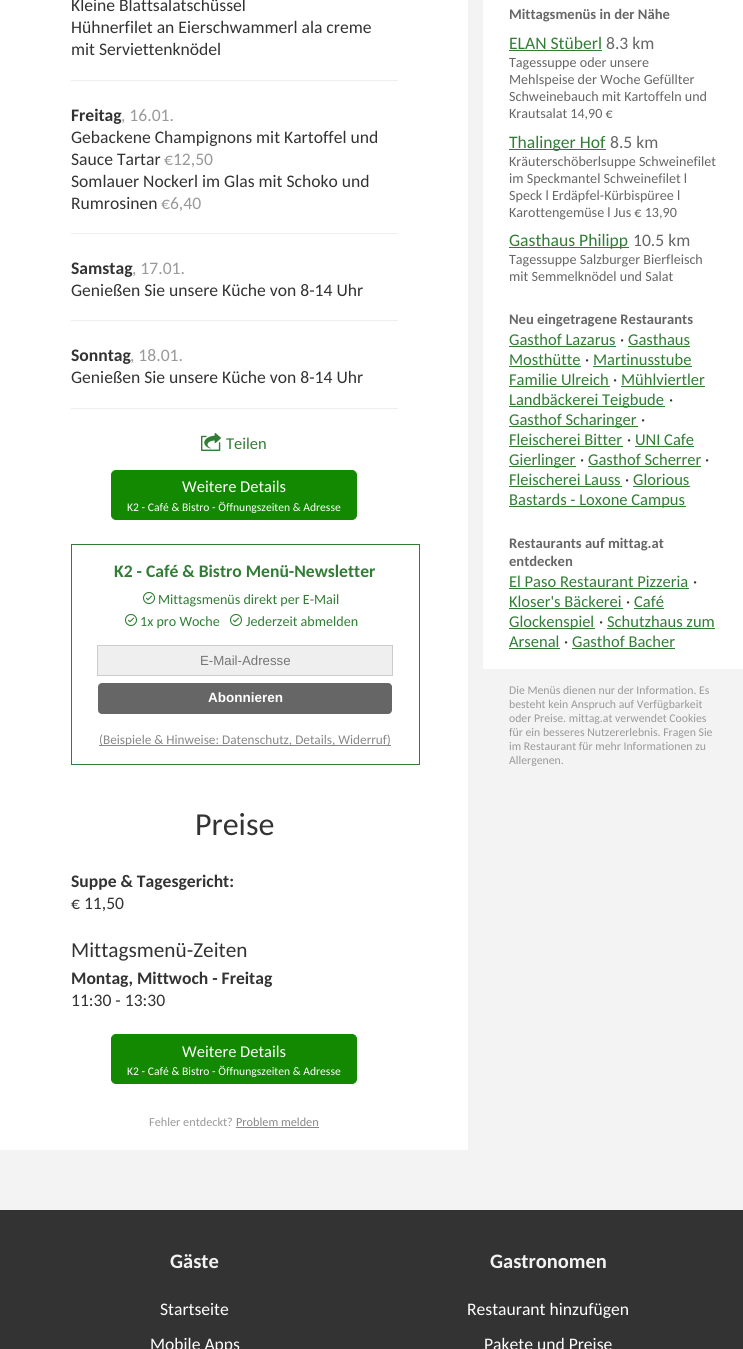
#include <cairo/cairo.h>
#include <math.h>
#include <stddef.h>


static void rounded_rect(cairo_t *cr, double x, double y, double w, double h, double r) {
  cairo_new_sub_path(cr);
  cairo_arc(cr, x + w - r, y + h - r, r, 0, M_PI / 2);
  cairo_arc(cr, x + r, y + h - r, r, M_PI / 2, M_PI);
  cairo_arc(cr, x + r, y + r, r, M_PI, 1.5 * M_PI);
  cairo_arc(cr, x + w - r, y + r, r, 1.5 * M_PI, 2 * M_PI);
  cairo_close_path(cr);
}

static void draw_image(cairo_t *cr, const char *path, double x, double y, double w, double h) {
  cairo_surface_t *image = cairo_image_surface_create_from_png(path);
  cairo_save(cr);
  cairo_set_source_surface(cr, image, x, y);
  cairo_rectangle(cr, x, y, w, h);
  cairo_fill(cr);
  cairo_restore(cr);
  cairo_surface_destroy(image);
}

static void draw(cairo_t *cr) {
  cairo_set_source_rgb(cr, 243 / 255.0, 243 / 255.0, 243 / 255.0);
  cairo_paint(cr);
  cairo_set_source_rgb(cr, 1, 1, 1);
  cairo_rectangle(cr, 0, 0, 468, 1150);
  cairo_fill(cr);
  cairo_set_source_rgb(cr, 238 / 255.0, 238 / 255.0, 238 / 255.0);
  cairo_rectangle(cr, 71, 80, 327, 1);
  cairo_fill(cr);
  cairo_rectangle(cr, 71, 233, 327, 1);
  cairo_fill(cr);
  cairo_rectangle(cr, 71, 320, 327, 1);
  cairo_fill(cr);
  cairo_rectangle(cr, 71, 408, 327, 1);
  cairo_fill(cr);
  draw_image(cr, "images/1.png", 201, 433, 20, 18);
  cairo_set_source_rgb(cr, 18 / 255.0, 137 / 255.0, 1 / 255.0);
  rounded_rect(cr, 111.5, 470.5, 245, 49, 4.5);
  cairo_fill_preserve(cr);
  cairo_set_line_width(cr, 1);
  cairo_stroke(cr);
  cairo_rectangle(cr, 71.5, 544.5, 348, 220);
  cairo_set_source_rgb(cr, 49 / 255.0, 125 / 255.0, 53 / 255.0);
  cairo_stroke(cr);
  draw_image(cr, "images/2.png", 143, 592, 12, 12);
  draw_image(cr, "images/2.png", 125, 614, 12, 12);
  draw_image(cr, "images/2.png", 230, 614, 12, 12);
  cairo_set_source_rgb(cr, 239 / 255.0, 239 / 255.0, 239 / 255.0);
  cairo_rectangle(cr, 97.5, 645.5, 295, 30);
  cairo_fill_preserve(cr);
  cairo_set_source_rgb(cr, 204 / 255.0, 204 / 255.0, 204 / 255.0);
  cairo_stroke(cr);
  cairo_set_source_rgb(cr, 102 / 255.0, 102 / 255.0, 102 / 255.0);
  rounded_rect(cr, 98, 683, 294, 31, 4);
  cairo_fill(cr);
  cairo_set_source_rgb(cr, 136 / 255.0, 136 / 255.0, 136 / 255.0);
  cairo_rectangle(cr, 99, 745, 292, 1);
  cairo_fill(cr);
  cairo_set_source_rgb(cr, 18 / 255.0, 137 / 255.0, 1 / 255.0);
  rounded_rect(cr, 111.5, 1034.5, 245, 49, 4.5);
  cairo_fill_preserve(cr);
  cairo_stroke(cr);
  cairo_set_source_rgb(cr, 136 / 255.0, 136 / 255.0, 136 / 255.0);
  cairo_rectangle(cr, 236, 1127, 83, 1);
  cairo_fill(cr);
  cairo_set_source_rgb(cr, 1, 1, 1);
  cairo_rectangle(cr, 483, 0, 260, 669);
  cairo_fill(cr);
  cairo_set_source_rgb(cr, 49 / 255.0, 125 / 255.0, 53 / 255.0);
  cairo_rectangle(cr, 509, 50, 93, 1);
  cairo_fill(cr);
  cairo_rectangle(cr, 509, 149, 97, 1);
  cairo_fill(cr);
  cairo_rectangle(cr, 509, 247, 120, 1);
  cairo_fill(cr);
  cairo_rectangle(cr, 509, 346, 107, 1);
  cairo_fill(cr);
  cairo_rectangle(cr, 628, 346, 62, 1);
  cairo_fill(cr);
  cairo_rectangle(cr, 509, 366, 72, 1);
  cairo_fill(cr);
  cairo_rectangle(cr, 593, 366, 99, 1);
  cairo_fill(cr);
  cairo_rectangle(cr, 509, 386, 101, 1);
  cairo_fill(cr);
  cairo_rectangle(cr, 621, 386, 84, 1);
  cairo_fill(cr);
  cairo_rectangle(cr, 509, 406, 156, 1);
  cairo_fill(cr);
  cairo_rectangle(cr, 509, 426, 129, 1);
  cairo_fill(cr);
  cairo_rectangle(cr, 509, 446, 114, 1);
  cairo_fill(cr);
  cairo_rectangle(cr, 635, 446, 59, 1);
  cairo_fill(cr);
  cairo_rectangle(cr, 509, 466, 67, 1);
  cairo_fill(cr);
  cairo_rectangle(cr, 588, 466, 113, 1);
  cairo_fill(cr);
  cairo_rectangle(cr, 509, 486, 113, 1);
  cairo_fill(cr);
  cairo_rectangle(cr, 633, 486, 57, 1);
  cairo_fill(cr);
  cairo_rectangle(cr, 509, 506, 177, 1);
  cairo_fill(cr);
  cairo_rectangle(cr, 509, 588, 180, 1);
  cairo_fill(cr);
  cairo_rectangle(cr, 509, 608, 114, 1);
  cairo_fill(cr);
  cairo_rectangle(cr, 634, 608, 30, 1);
  cairo_fill(cr);
  cairo_rectangle(cr, 509, 628, 86, 1);
  cairo_fill(cr);
  cairo_rectangle(cr, 607, 628, 108, 1);
  cairo_fill(cr);
  cairo_rectangle(cr, 509, 648, 51, 1);
  cairo_fill(cr);
  cairo_rectangle(cr, 572, 648, 103, 1);
  cairo_fill(cr);
  cairo_set_source_rgb(cr, 51 / 255.0, 51 / 255.0, 51 / 255.0);
  cairo_rectangle(cr, 0, 1210, 743, 139);
  cairo_fill(cr);
  cairo_select_font_face(cr, "Carlito", CAIRO_FONT_SLANT_NORMAL, CAIRO_FONT_WEIGHT_NORMAL);
  cairo_set_font_size(cr, 17.6);
  cairo_move_to(cr, 71, 11);
  cairo_show_text(cr, "Kleine Blattsalatschüssel");
  cairo_move_to(cr, 71, 33);
  cairo_show_text(cr, "Hühnerfilet an Eierschwammerl ala creme");
  cairo_move_to(cr, 71, 55);
  cairo_show_text(cr, "mit Serviettenknödel");
  cairo_select_font_face(cr, "Carlito", CAIRO_FONT_SLANT_NORMAL, CAIRO_FONT_WEIGHT_BOLD);
  cairo_move_to(cr, 71, 121);
  cairo_show_text(cr, "Freitag");
  cairo_select_font_face(cr, "Carlito", CAIRO_FONT_SLANT_NORMAL, CAIRO_FONT_WEIGHT_NORMAL);
  cairo_set_source_rgb(cr, 153 / 255.0, 153 / 255.0, 153 / 255.0);
  cairo_move_to(cr, 121, 121);
  cairo_show_text(cr, ", 16.01.");
  cairo_set_source_rgb(cr, 51 / 255.0, 51 / 255.0, 51 / 255.0);
  cairo_move_to(cr, 71, 143);
  cairo_show_text(cr, "Gebackene Champignons mit Kartoffel und");
  cairo_move_to(cr, 71, 165);
  cairo_show_text(cr, "Sauce Tartar");
  cairo_set_source_rgb(cr, 153 / 255.0, 153 / 255.0, 153 / 255.0);
  cairo_move_to(cr, 164, 165);
  cairo_show_text(cr, "€12,50");
  cairo_set_source_rgb(cr, 51 / 255.0, 51 / 255.0, 51 / 255.0);
  cairo_move_to(cr, 71, 187);
  cairo_show_text(cr, "Somlauer Nockerl im Glas mit Schoko und");
  cairo_move_to(cr, 71, 209);
  cairo_show_text(cr, "Rumrosinen");
  cairo_set_source_rgb(cr, 153 / 255.0, 153 / 255.0, 153 / 255.0);
  cairo_move_to(cr, 161, 209);
  cairo_show_text(cr, "€6,40");
  cairo_select_font_face(cr, "Carlito", CAIRO_FONT_SLANT_NORMAL, CAIRO_FONT_WEIGHT_BOLD);
  cairo_set_source_rgb(cr, 51 / 255.0, 51 / 255.0, 51 / 255.0);
  cairo_move_to(cr, 71, 274);
  cairo_show_text(cr, "Samstag");
  cairo_select_font_face(cr, "Carlito", CAIRO_FONT_SLANT_NORMAL, CAIRO_FONT_WEIGHT_NORMAL);
  cairo_set_source_rgb(cr, 153 / 255.0, 153 / 255.0, 153 / 255.0);
  cairo_move_to(cr, 132, 274);
  cairo_show_text(cr, ", 17.01.");
  cairo_set_source_rgb(cr, 51 / 255.0, 51 / 255.0, 51 / 255.0);
  cairo_move_to(cr, 71, 296);
  cairo_show_text(cr, "Genießen Sie unsere Küche von 8-14 Uhr");
  cairo_select_font_face(cr, "Carlito", CAIRO_FONT_SLANT_NORMAL, CAIRO_FONT_WEIGHT_BOLD);
  cairo_move_to(cr, 71, 361);
  cairo_show_text(cr, "Sonntag");
  cairo_select_font_face(cr, "Carlito", CAIRO_FONT_SLANT_NORMAL, CAIRO_FONT_WEIGHT_NORMAL);
  cairo_set_source_rgb(cr, 153 / 255.0, 153 / 255.0, 153 / 255.0);
  cairo_move_to(cr, 130, 361);
  cairo_show_text(cr, ", 18.01.");
  cairo_set_source_rgb(cr, 51 / 255.0, 51 / 255.0, 51 / 255.0);
  cairo_move_to(cr, 71, 383);
  cairo_show_text(cr, "Genießen Sie unsere Küche von 8-14 Uhr");
  cairo_set_font_size(cr, 16.5);
  cairo_set_source_rgb(cr, 49 / 255.0, 125 / 255.0, 53 / 255.0);
  cairo_move_to(cr, 226, 449);
  cairo_show_text(cr, "Teilen");
  cairo_set_source_rgb(cr, 1, 1, 1);
  cairo_move_to(cr, 182, 492);
  cairo_show_text(cr, "Weitere Details");
  cairo_set_font_size(cr, 11.6);
  cairo_move_to(cr, 127, 511);
  cairo_show_text(cr, "K2 - Café & Bistro - Öffnungszeiten & Adresse");
  cairo_select_font_face(cr, "Carlito", CAIRO_FONT_SLANT_NORMAL, CAIRO_FONT_WEIGHT_BOLD);
  cairo_set_font_size(cr, 17.6);
  cairo_set_source_rgb(cr, 49 / 255.0, 125 / 255.0, 53 / 255.0);
  cairo_move_to(cr, 114, 577);
  cairo_show_text(cr, "K2 - Café & Bistro Menü-Newsletter");
  cairo_select_font_face(cr, "Carlito", CAIRO_FONT_SLANT_NORMAL, CAIRO_FONT_WEIGHT_NORMAL);
  cairo_set_font_size(cr, 14.1);
  cairo_move_to(cr, 158, 604);
  cairo_show_text(cr, "Mittagsmenüs direkt per E-Mail");
  cairo_move_to(cr, 140, 626);
  cairo_show_text(cr, "1x pro Woche");
  cairo_move_to(cr, 246, 626);
  cairo_show_text(cr, "Jederzeit abmelden");
  cairo_select_font_face(cr, "Liberation Sans", CAIRO_FONT_SLANT_NORMAL, CAIRO_FONT_WEIGHT_NORMAL);
  cairo_set_font_size(cr, 13.25);
  cairo_set_source_rgb(cr, 117 / 255.0, 117 / 255.0, 117 / 255.0);
  cairo_move_to(cr, 200, 665);
  cairo_show_text(cr, "E-Mail-Adresse");
  cairo_select_font_face(cr, "Liberation Sans", CAIRO_FONT_SLANT_NORMAL, CAIRO_FONT_WEIGHT_BOLD);
  cairo_set_font_size(cr, 13.5);
  cairo_set_source_rgb(cr, 1, 1, 1);
  cairo_move_to(cr, 208, 702);
  cairo_show_text(cr, "Abonnieren");
  cairo_select_font_face(cr, "Carlito", CAIRO_FONT_SLANT_NORMAL, CAIRO_FONT_WEIGHT_NORMAL);
  cairo_set_font_size(cr, 13.25);
  cairo_set_source_rgb(cr, 136 / 255.0, 136 / 255.0, 136 / 255.0);
  cairo_move_to(cr, 99, 744);
  cairo_show_text(cr, "(Beispiele & Hinweise: Datenschutz, Details, Widerruf)");
  cairo_set_font_size(cr, 32);
  cairo_set_source_rgb(cr, 51 / 255.0, 51 / 255.0, 51 / 255.0);
  cairo_move_to(cr, 195, 835);
  cairo_show_text(cr, "Preise");
  cairo_select_font_face(cr, "Carlito", CAIRO_FONT_SLANT_NORMAL, CAIRO_FONT_WEIGHT_BOLD);
  cairo_set_font_size(cr, 17.6);
  cairo_move_to(cr, 71, 887);
  cairo_show_text(cr, "Suppe & Tagesgericht:");
  cairo_select_font_face(cr, "Carlito", CAIRO_FONT_SLANT_NORMAL, CAIRO_FONT_WEIGHT_NORMAL);
  cairo_move_to(cr, 71, 909);
  cairo_show_text(cr, "€ 11,50");
  cairo_set_font_size(cr, 21.25);
  cairo_move_to(cr, 71, 957);
  cairo_show_text(cr, "Mittagsmenü-Zeiten");
  cairo_select_font_face(cr, "Carlito", CAIRO_FONT_SLANT_NORMAL, CAIRO_FONT_WEIGHT_BOLD);
  cairo_set_font_size(cr, 17.6);
  cairo_move_to(cr, 71, 984);
  cairo_show_text(cr, "Montag, Mittwoch - Freitag");
  cairo_select_font_face(cr, "Carlito", CAIRO_FONT_SLANT_NORMAL, CAIRO_FONT_WEIGHT_NORMAL);
  cairo_move_to(cr, 71, 1006);
  cairo_show_text(cr, "11:30 - 13:30");
  cairo_set_font_size(cr, 16.5);
  cairo_set_source_rgb(cr, 1, 1, 1);
  cairo_move_to(cr, 182, 1057);
  cairo_show_text(cr, "Weitere Details");
  cairo_set_font_size(cr, 11.6);
  cairo_move_to(cr, 127, 1075);
  cairo_show_text(cr, "K2 - Café & Bistro - Öffnungszeiten & Adresse");
  cairo_set_font_size(cr, 12.25);
  cairo_set_source_rgb(cr, 153 / 255.0, 153 / 255.0, 153 / 255.0);
  cairo_move_to(cr, 149, 1126);
  cairo_show_text(cr, "Fehler entdeckt?");
  cairo_set_source_rgb(cr, 136 / 255.0, 136 / 255.0, 136 / 255.0);
  cairo_move_to(cr, 236, 1126);
  cairo_show_text(cr, "Problem melden");
  cairo_select_font_face(cr, "Carlito", CAIRO_FONT_SLANT_NORMAL, CAIRO_FONT_WEIGHT_BOLD);
  cairo_set_font_size(cr, 14.6);
  cairo_set_source_rgb(cr, 102 / 255.0, 102 / 255.0, 102 / 255.0);
  cairo_move_to(cr, 509, 19);
  cairo_show_text(cr, "Mittagsmenüs in der Nähe");
  cairo_select_font_face(cr, "Carlito", CAIRO_FONT_SLANT_NORMAL, CAIRO_FONT_WEIGHT_NORMAL);
  cairo_set_font_size(cr, 17.6);
  cairo_set_source_rgb(cr, 49 / 255.0, 125 / 255.0, 53 / 255.0);
  cairo_move_to(cr, 509, 49);
  cairo_show_text(cr, "ELAN Stüberl");
  cairo_set_source_rgb(cr, 102 / 255.0, 102 / 255.0, 102 / 255.0);
  cairo_move_to(cr, 606, 49);
  cairo_show_text(cr, "8.3 km");
  cairo_set_font_size(cr, 14.1);
  cairo_move_to(cr, 509, 67);
  cairo_show_text(cr, "Tagessuppe oder unsere");
  cairo_move_to(cr, 509, 84);
  cairo_show_text(cr, "Mehlspeise der Woche Gefüllter");
  cairo_move_to(cr, 509, 101);
  cairo_show_text(cr, "Schweinebauch mit Kartoffeln und");
  cairo_move_to(cr, 509, 118);
  cairo_show_text(cr, "Krautsalat 14,90 €");
  cairo_set_font_size(cr, 17.6);
  cairo_set_source_rgb(cr, 49 / 255.0, 125 / 255.0, 53 / 255.0);
  cairo_move_to(cr, 509, 148);
  cairo_show_text(cr, "Thalinger Hof");
  cairo_set_source_rgb(cr, 102 / 255.0, 102 / 255.0, 102 / 255.0);
  cairo_move_to(cr, 610, 148);
  cairo_show_text(cr, "8.5 km");
  cairo_set_font_size(cr, 14.1);
  cairo_move_to(cr, 509, 166);
  cairo_show_text(cr, "Kräuterschöberlsuppe Schweinefilet");
  cairo_move_to(cr, 509, 183);
  cairo_show_text(cr, "im Speckmantel Schweinefilet l");
  cairo_move_to(cr, 509, 200);
  cairo_show_text(cr, "Speck l Erdäpfel-Kürbispüree l");
  cairo_move_to(cr, 509, 217);
  cairo_show_text(cr, "Karottengemüse l Jus € 13,90");
  cairo_set_font_size(cr, 17.6);
  cairo_set_source_rgb(cr, 49 / 255.0, 125 / 255.0, 53 / 255.0);
  cairo_move_to(cr, 509, 246);
  cairo_show_text(cr, "Gasthaus Philipp");
  cairo_set_source_rgb(cr, 102 / 255.0, 102 / 255.0, 102 / 255.0);
  cairo_move_to(cr, 633, 246);
  cairo_show_text(cr, "10.5 km");
  cairo_set_font_size(cr, 14.1);
  cairo_move_to(cr, 509, 264);
  cairo_show_text(cr, "Tagessuppe Salzburger Bierfleisch");
  cairo_move_to(cr, 509, 281);
  cairo_show_text(cr, "mit Semmelknödel und Salat");
  cairo_select_font_face(cr, "Carlito", CAIRO_FONT_SLANT_NORMAL, CAIRO_FONT_WEIGHT_BOLD);
  cairo_set_font_size(cr, 14.6);
  cairo_move_to(cr, 509, 324);
  cairo_show_text(cr, "Neu eingetragene Restaurants");
  cairo_select_font_face(cr, "Carlito", CAIRO_FONT_SLANT_NORMAL, CAIRO_FONT_WEIGHT_NORMAL);
  cairo_set_font_size(cr, 16.5);
  cairo_set_source_rgb(cr, 49 / 255.0, 125 / 255.0, 53 / 255.0);
  cairo_move_to(cr, 509, 345);
  cairo_show_text(cr, "Gasthof Lazarus");
  cairo_set_source_rgb(cr, 51 / 255.0, 51 / 255.0, 51 / 255.0);
  cairo_move_to(cr, 620, 345);
  cairo_show_text(cr, "·");
  cairo_set_source_rgb(cr, 49 / 255.0, 125 / 255.0, 53 / 255.0);
  cairo_move_to(cr, 628, 345);
  cairo_show_text(cr, "Gasthaus");
  cairo_move_to(cr, 509, 365);
  cairo_show_text(cr, "Mosthütte");
  cairo_set_source_rgb(cr, 51 / 255.0, 51 / 255.0, 51 / 255.0);
  cairo_move_to(cr, 585, 365);
  cairo_show_text(cr, "·");
  cairo_set_source_rgb(cr, 49 / 255.0, 125 / 255.0, 53 / 255.0);
  cairo_move_to(cr, 593, 365);
  cairo_show_text(cr, "Martinusstube");
  cairo_move_to(cr, 509, 385);
  cairo_show_text(cr, "Familie Ulreich");
  cairo_set_source_rgb(cr, 51 / 255.0, 51 / 255.0, 51 / 255.0);
  cairo_move_to(cr, 613, 385);
  cairo_show_text(cr, "·");
  cairo_set_source_rgb(cr, 49 / 255.0, 125 / 255.0, 53 / 255.0);
  cairo_move_to(cr, 621, 385);
  cairo_show_text(cr, "Mühlviertler");
  cairo_move_to(cr, 509, 405);
  cairo_show_text(cr, "Landbäckerei Teigbude");
  cairo_set_source_rgb(cr, 51 / 255.0, 51 / 255.0, 51 / 255.0);
  cairo_move_to(cr, 669, 405);
  cairo_show_text(cr, "·");
  cairo_set_source_rgb(cr, 49 / 255.0, 125 / 255.0, 53 / 255.0);
  cairo_move_to(cr, 509, 425);
  cairo_show_text(cr, "Gasthof Scharinger");
  cairo_set_source_rgb(cr, 51 / 255.0, 51 / 255.0, 51 / 255.0);
  cairo_move_to(cr, 641, 425);
  cairo_show_text(cr, "·");
  cairo_set_source_rgb(cr, 49 / 255.0, 125 / 255.0, 53 / 255.0);
  cairo_move_to(cr, 509, 445);
  cairo_show_text(cr, "Fleischerei Bitter");
  cairo_set_source_rgb(cr, 51 / 255.0, 51 / 255.0, 51 / 255.0);
  cairo_move_to(cr, 627, 445);
  cairo_show_text(cr, "·");
  cairo_set_source_rgb(cr, 49 / 255.0, 125 / 255.0, 53 / 255.0);
  cairo_move_to(cr, 635, 445);
  cairo_show_text(cr, "UNI Cafe");
  cairo_move_to(cr, 509, 465);
  cairo_show_text(cr, "Gierlinger");
  cairo_set_source_rgb(cr, 51 / 255.0, 51 / 255.0, 51 / 255.0);
  cairo_move_to(cr, 580, 465);
  cairo_show_text(cr, "·");
  cairo_set_source_rgb(cr, 49 / 255.0, 125 / 255.0, 53 / 255.0);
  cairo_move_to(cr, 588, 465);
  cairo_show_text(cr, "Gasthof Scherrer");
  cairo_set_source_rgb(cr, 51 / 255.0, 51 / 255.0, 51 / 255.0);
  cairo_move_to(cr, 705, 465);
  cairo_show_text(cr, "·");
  cairo_set_source_rgb(cr, 49 / 255.0, 125 / 255.0, 53 / 255.0);
  cairo_move_to(cr, 509, 485);
  cairo_show_text(cr, "Fleischerei Lauss");
  cairo_set_source_rgb(cr, 51 / 255.0, 51 / 255.0, 51 / 255.0);
  cairo_move_to(cr, 625, 485);
  cairo_show_text(cr, "·");
  cairo_set_source_rgb(cr, 49 / 255.0, 125 / 255.0, 53 / 255.0);
  cairo_move_to(cr, 633, 485);
  cairo_show_text(cr, "Glorious");
  cairo_move_to(cr, 509, 505);
  cairo_show_text(cr, "Bastards - Loxone Campus");
  cairo_select_font_face(cr, "Carlito", CAIRO_FONT_SLANT_NORMAL, CAIRO_FONT_WEIGHT_BOLD);
  cairo_set_font_size(cr, 14.6);
  cairo_set_source_rgb(cr, 102 / 255.0, 102 / 255.0, 102 / 255.0);
  cairo_move_to(cr, 509, 548);
  cairo_show_text(cr, "Restaurants auf mittag.at");
  cairo_move_to(cr, 509, 566);
  cairo_show_text(cr, "entdecken");
  cairo_select_font_face(cr, "Carlito", CAIRO_FONT_SLANT_NORMAL, CAIRO_FONT_WEIGHT_NORMAL);
  cairo_set_font_size(cr, 16.5);
  cairo_set_source_rgb(cr, 49 / 255.0, 125 / 255.0, 53 / 255.0);
  cairo_move_to(cr, 509, 587);
  cairo_show_text(cr, "El Paso Restaurant Pizzeria");
  cairo_set_source_rgb(cr, 51 / 255.0, 51 / 255.0, 51 / 255.0);
  cairo_move_to(cr, 693, 587);
  cairo_show_text(cr, "·");
  cairo_set_source_rgb(cr, 49 / 255.0, 125 / 255.0, 53 / 255.0);
  cairo_move_to(cr, 509, 607);
  cairo_show_text(cr, "Kloser's Bäckerei");
  cairo_set_source_rgb(cr, 51 / 255.0, 51 / 255.0, 51 / 255.0);
  cairo_move_to(cr, 626, 607);
  cairo_show_text(cr, "·");
  cairo_set_source_rgb(cr, 49 / 255.0, 125 / 255.0, 53 / 255.0);
  cairo_move_to(cr, 634, 607);
  cairo_show_text(cr, "Café");
  cairo_move_to(cr, 509, 627);
  cairo_show_text(cr, "Glockenspiel");
  cairo_set_source_rgb(cr, 51 / 255.0, 51 / 255.0, 51 / 255.0);
  cairo_move_to(cr, 599, 627);
  cairo_show_text(cr, "·");
  cairo_set_source_rgb(cr, 49 / 255.0, 125 / 255.0, 53 / 255.0);
  cairo_move_to(cr, 607, 627);
  cairo_show_text(cr, "Schutzhaus zum");
  cairo_move_to(cr, 509, 647);
  cairo_show_text(cr, "Arsenal");
  cairo_set_source_rgb(cr, 51 / 255.0, 51 / 255.0, 51 / 255.0);
  cairo_move_to(cr, 564, 647);
  cairo_show_text(cr, "·");
  cairo_set_source_rgb(cr, 49 / 255.0, 125 / 255.0, 53 / 255.0);
  cairo_move_to(cr, 572, 647);
  cairo_show_text(cr, "Gasthof Bacher");
  cairo_set_font_size(cr, 11.75);
  cairo_set_source_rgb(cr, 153 / 255.0, 153 / 255.0, 153 / 255.0);
  cairo_move_to(cr, 509, 694);
  cairo_show_text(cr, "Die Menüs dienen nur der Information. Es");
  cairo_move_to(cr, 509, 708);
  cairo_show_text(cr, "besteht kein Anspruch auf Verfügbarkeit");
  cairo_move_to(cr, 509, 722);
  cairo_show_text(cr, "oder Preise. mittag.at verwendet Cookies");
  cairo_move_to(cr, 509, 736);
  cairo_show_text(cr, "für ein besseres Nutzererlebnis. Fragen Sie");
  cairo_move_to(cr, 509, 750);
  cairo_show_text(cr, "im Restaurant für mehr Informationen zu");
  cairo_move_to(cr, 509, 764);
  cairo_show_text(cr, "Allergenen.");
  cairo_select_font_face(cr, "Carlito", CAIRO_FONT_SLANT_NORMAL, CAIRO_FONT_WEIGHT_BOLD);
  cairo_set_font_size(cr, 20.5);
  cairo_set_source_rgb(cr, 243 / 255.0, 243 / 255.0, 243 / 255.0);
  cairo_move_to(cr, 170, 1268);
  cairo_show_text(cr, "Gäste");
  cairo_select_font_face(cr, "Carlito", CAIRO_FONT_SLANT_NORMAL, CAIRO_FONT_WEIGHT_NORMAL);
  cairo_set_font_size(cr, 17.6);
  cairo_set_source_rgb(cr, 1, 1, 1);
  cairo_move_to(cr, 160, 1315);
  cairo_show_text(cr, "Startseite");
  cairo_move_to(cr, 150, 1350);
  cairo_show_text(cr, "Mobile Apps");
  cairo_select_font_face(cr, "Carlito", CAIRO_FONT_SLANT_NORMAL, CAIRO_FONT_WEIGHT_BOLD);
  cairo_set_font_size(cr, 20.5);
  cairo_set_source_rgb(cr, 243 / 255.0, 243 / 255.0, 243 / 255.0);
  cairo_move_to(cr, 490, 1268);
  cairo_show_text(cr, "Gastronomen");
  cairo_select_font_face(cr, "Carlito", CAIRO_FONT_SLANT_NORMAL, CAIRO_FONT_WEIGHT_NORMAL);
  cairo_set_font_size(cr, 17.6);
  cairo_set_source_rgb(cr, 1, 1, 1);
  cairo_move_to(cr, 467, 1315);
  cairo_show_text(cr, "Restaurant hinzufügen");
  cairo_move_to(cr, 484, 1350);
  cairo_show_text(cr, "Pakete und Preise");
}

int main(void) {
  cairo_surface_t *surface = cairo_image_surface_create(CAIRO_FORMAT_RGB24, 743, 1349);
  cairo_t *cr = cairo_create(surface);
  cairo_font_options_t *options = cairo_font_options_create();
  cairo_font_options_set_hint_metrics(options, CAIRO_HINT_METRICS_OFF);
  cairo_font_options_set_hint_style(options, CAIRO_HINT_STYLE_NONE);
  cairo_set_font_options(cr, options);
  cairo_set_miter_limit(cr, 4);
  draw(cr);
  cairo_surface_write_to_png(surface, "out.png");
  cairo_font_options_destroy(options);
  cairo_destroy(cr);
  cairo_surface_destroy(surface);
  return 0;
}
